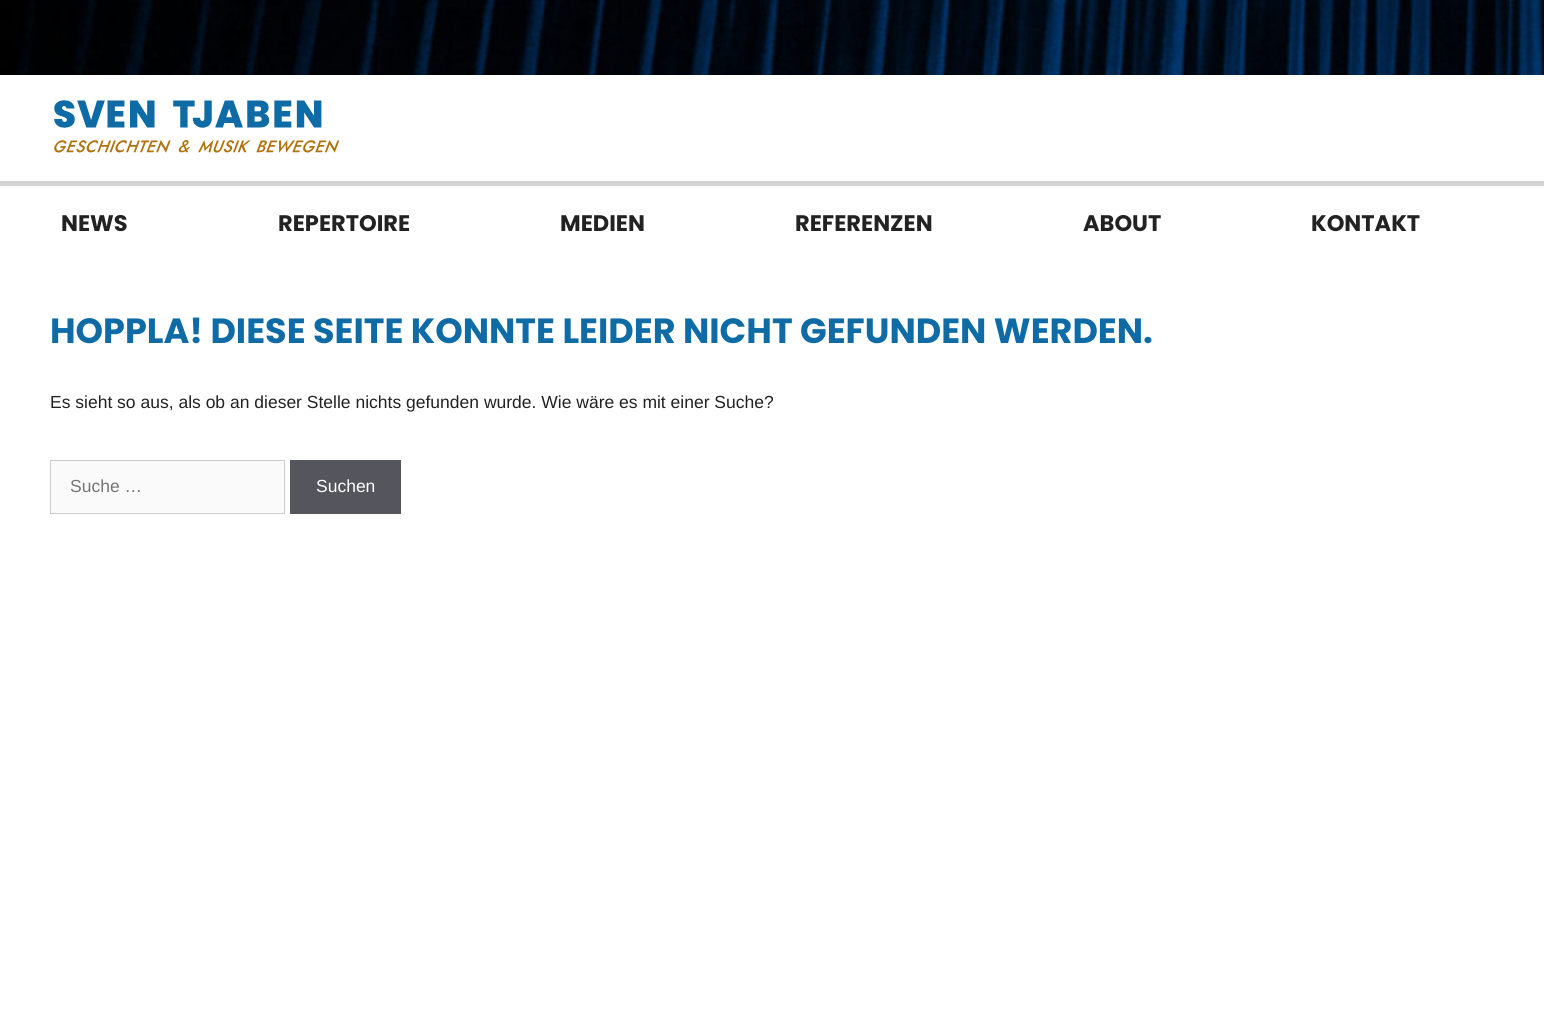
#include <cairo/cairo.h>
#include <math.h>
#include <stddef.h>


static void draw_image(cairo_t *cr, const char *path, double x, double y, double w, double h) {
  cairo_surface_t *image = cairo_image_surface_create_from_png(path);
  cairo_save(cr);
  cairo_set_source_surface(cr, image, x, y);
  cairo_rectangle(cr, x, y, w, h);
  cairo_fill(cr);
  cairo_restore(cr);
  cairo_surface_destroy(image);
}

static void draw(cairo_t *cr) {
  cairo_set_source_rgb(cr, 1, 1, 1);
  cairo_paint(cr);
  draw_image(cr, "images/1.png", 0, 0, 1544, 75);
  draw_image(cr, "images/2.png", 54, 100, 286, 53);
  cairo_set_source_rgb(cr, 211 / 255.0, 211 / 255.0, 211 / 255.0);
  cairo_rectangle(cr, 0, 181, 1544, 5);
  cairo_fill(cr);
  cairo_set_source_rgb(cr, 250 / 255.0, 250 / 255.0, 250 / 255.0);
  cairo_rectangle(cr, 50.5, 460.5, 234, 53);
  cairo_fill_preserve(cr);
  cairo_set_source_rgb(cr, 204 / 255.0, 204 / 255.0, 204 / 255.0);
  cairo_set_line_width(cr, 1);
  cairo_stroke(cr);
  cairo_set_source_rgb(cr, 85 / 255.0, 85 / 255.0, 94 / 255.0);
  cairo_rectangle(cr, 290, 460, 111, 54);
  cairo_fill(cr);
  cairo_select_font_face(cr, "Poppins", CAIRO_FONT_SLANT_NORMAL, CAIRO_FONT_WEIGHT_BOLD);
  cairo_set_font_size(cr, 22.5);
  cairo_set_source_rgb(cr, 34 / 255.0, 34 / 255.0, 34 / 255.0);
  cairo_move_to(cr, 61, 231);
  cairo_show_text(cr, "NEWS");
  cairo_move_to(cr, 278, 231);
  cairo_show_text(cr, "REPERTOIRE");
  cairo_move_to(cr, 560, 231);
  cairo_show_text(cr, "MEDIEN");
  cairo_move_to(cr, 795, 231);
  cairo_show_text(cr, "REFERENZEN");
  cairo_move_to(cr, 1083, 231);
  cairo_show_text(cr, "ABOUT");
  cairo_move_to(cr, 1311, 231);
  cairo_show_text(cr, "KONTAKT");
  cairo_set_font_size(cr, 35);
  cairo_set_source_rgb(cr, 14 / 255.0, 107 / 255.0, 166 / 255.0);
  cairo_move_to(cr, 50, 343);
  cairo_show_text(cr, "HOPPLA! DIESE SEITE KONNTE LEIDER NICHT GEFUNDEN WERDEN.");
  cairo_select_font_face(cr, "Liberation Sans", CAIRO_FONT_SLANT_NORMAL, CAIRO_FONT_WEIGHT_NORMAL);
  cairo_set_font_size(cr, 17.5);
  cairo_set_source_rgb(cr, 34 / 255.0, 34 / 255.0, 34 / 255.0);
  cairo_move_to(cr, 50, 408);
  cairo_show_text(cr, "Es sieht so aus, als ob an dieser Stelle nichts gefunden wurde. Wie wäre es mit einer Suche?");
  cairo_set_source_rgb(cr, 117 / 255.0, 117 / 255.0, 117 / 255.0);
  cairo_move_to(cr, 70, 492);
  cairo_show_text(cr, "Suche …");
  cairo_set_source_rgb(cr, 1, 1, 1);
  cairo_move_to(cr, 316, 492);
  cairo_show_text(cr, "Suchen");
}

int main(void) {
  cairo_surface_t *surface = cairo_image_surface_create(CAIRO_FORMAT_RGB24, 1544, 1012);
  cairo_t *cr = cairo_create(surface);
  cairo_font_options_t *options = cairo_font_options_create();
  cairo_font_options_set_hint_metrics(options, CAIRO_HINT_METRICS_OFF);
  cairo_font_options_set_hint_style(options, CAIRO_HINT_STYLE_NONE);
  cairo_set_font_options(cr, options);
  cairo_set_miter_limit(cr, 4);
  draw(cr);
  cairo_surface_write_to_png(surface, "out.png");
  cairo_font_options_destroy(options);
  cairo_destroy(cr);
  cairo_surface_destroy(surface);
  return 0;
}
